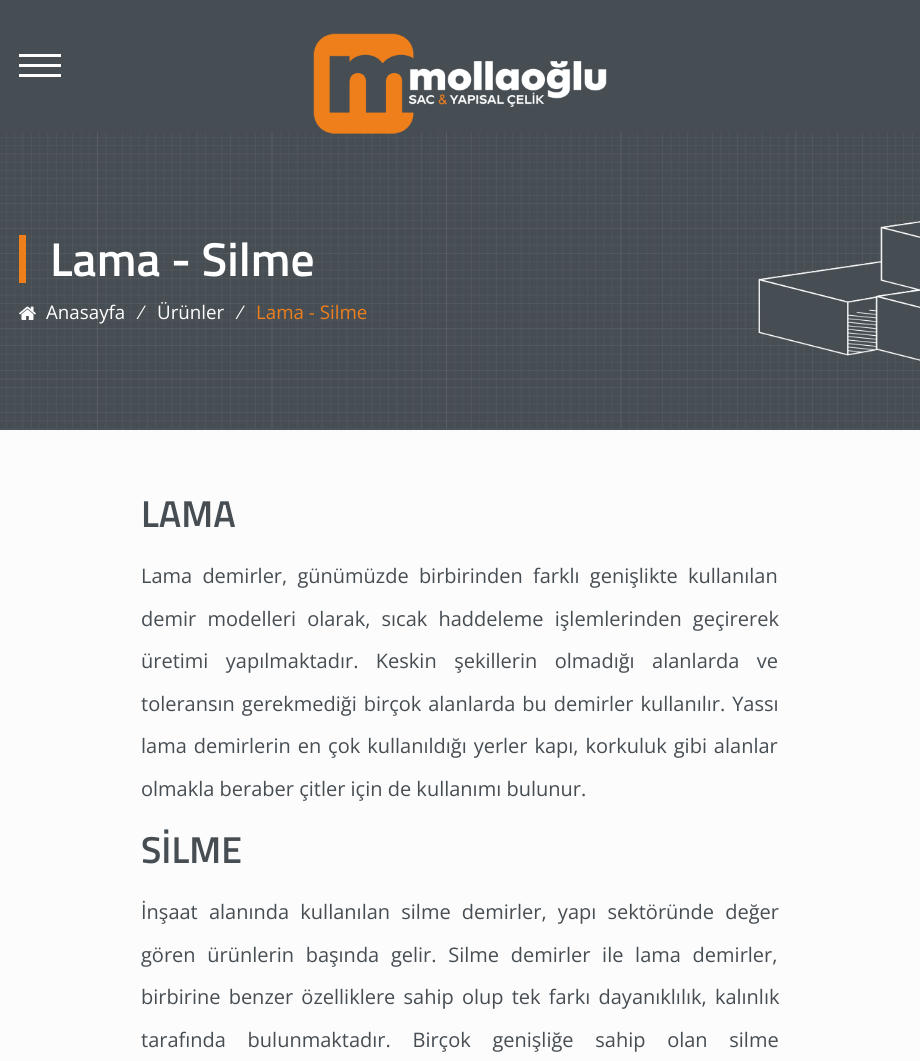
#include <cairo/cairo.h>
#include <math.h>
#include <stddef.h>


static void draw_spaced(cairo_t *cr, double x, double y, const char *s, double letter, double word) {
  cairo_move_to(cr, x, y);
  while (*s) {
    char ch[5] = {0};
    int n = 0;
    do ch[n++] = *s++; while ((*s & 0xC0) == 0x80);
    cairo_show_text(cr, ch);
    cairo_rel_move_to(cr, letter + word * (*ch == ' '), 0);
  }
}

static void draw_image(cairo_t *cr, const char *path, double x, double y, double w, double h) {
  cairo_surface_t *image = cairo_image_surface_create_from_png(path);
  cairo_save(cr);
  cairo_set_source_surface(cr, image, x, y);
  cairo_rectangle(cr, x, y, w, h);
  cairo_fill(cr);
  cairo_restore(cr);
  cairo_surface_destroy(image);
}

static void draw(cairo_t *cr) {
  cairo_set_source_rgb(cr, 252 / 255.0, 252 / 255.0, 252 / 255.0);
  cairo_paint(cr);
  cairo_set_source_rgb(cr, 70 / 255.0, 77 / 255.0, 83 / 255.0);
  cairo_rectangle(cr, 0, 0, 920, 133);
  cairo_fill(cr);
  cairo_set_source_rgb(cr, 1, 1, 1);
  cairo_rectangle(cr, 19, 54, 42, 3);
  cairo_fill(cr);
  cairo_rectangle(cr, 19, 64, 42, 3);
  cairo_fill(cr);
  cairo_rectangle(cr, 19, 74, 42, 3);
  cairo_fill(cr);
  draw_image(cr, "images/2.png", 0, 132, 920, 298);
  draw_image(cr, "images/1.png", 313, 33, 294, 101);
  cairo_set_source_rgb(cr, 239 / 255.0, 127 / 255.0, 26 / 255.0);
  cairo_rectangle(cr, 19, 235, 7, 48);
  cairo_fill(cr);
  draw_image(cr, "images/3.png", 19, 306, 17, 14);
  cairo_select_font_face(cr, "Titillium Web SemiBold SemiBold", CAIRO_FONT_SLANT_NORMAL, CAIRO_FONT_WEIGHT_NORMAL);
  cairo_set_font_size(cr, 47.5);
  cairo_set_source_rgb(cr, 1, 1, 1);
  cairo_move_to(cr, 50, 276);
  cairo_show_text(cr, "Lama - Silme");
  cairo_select_font_face(cr, "Open Sans", CAIRO_FONT_SLANT_NORMAL, CAIRO_FONT_WEIGHT_NORMAL);
  cairo_set_font_size(cr, 18.75);
  cairo_move_to(cr, 46, 319);
  cairo_show_text(cr, "Anasayfa");
  cairo_move_to(cr, 140, 319);
  cairo_show_text(cr, "⁄");
  cairo_move_to(cr, 157, 319);
  cairo_show_text(cr, "Ürünler");
  cairo_move_to(cr, 239, 319);
  cairo_show_text(cr, "⁄");
  cairo_set_source_rgb(cr, 239 / 255.0, 127 / 255.0, 26 / 255.0);
  cairo_move_to(cr, 256, 319);
  cairo_show_text(cr, "Lama - Silme");
  cairo_select_font_face(cr, "Titillium Web SemiBold SemiBold", CAIRO_FONT_SLANT_NORMAL, CAIRO_FONT_WEIGHT_NORMAL);
  cairo_set_font_size(cr, 37.5);
  cairo_set_source_rgb(cr, 70 / 255.0, 77 / 255.0, 83 / 255.0);
  cairo_move_to(cr, 141, 527);
  cairo_show_text(cr, "LAMA");
  cairo_select_font_face(cr, "Open Sans", CAIRO_FONT_SLANT_NORMAL, CAIRO_FONT_WEIGHT_NORMAL);
  cairo_set_font_size(cr, 20);
  draw_spaced(cr, 141, 583, "Lama demirler, günümüzde birbirinden farklı genişlikte kullanılan", 0, 5);
  draw_spaced(cr, 141, 626, "demir modelleri olarak, sıcak haddeleme işlemlerinden geçirerek", 0, 6);
  draw_spaced(cr, 141, 668, "üretimi yapılmaktadır. Keskin şekillerin olmadığı alanlarda ve", 0, 12.25);
  draw_spaced(cr, 141, 711, "toleransın gerekmediği birçok alanlarda bu demirler kullanılır. Yassı", 0, 1.75);
  draw_spaced(cr, 141, 753, "lama demirlerin en çok kullanıldığı yerler kapı, korkuluk gibi alanlar", 0, 1.75);
  cairo_move_to(cr, 141, 796);
  cairo_show_text(cr, "olmakla beraber çitler için de kullanımı bulunur.");
  cairo_select_font_face(cr, "Titillium Web SemiBold SemiBold", CAIRO_FONT_SLANT_NORMAL, CAIRO_FONT_WEIGHT_NORMAL);
  cairo_set_font_size(cr, 37.5);
  cairo_move_to(cr, 141, 863);
  cairo_show_text(cr, "SİLME");
  cairo_select_font_face(cr, "Open Sans", CAIRO_FONT_SLANT_NORMAL, CAIRO_FONT_WEIGHT_NORMAL);
  cairo_set_font_size(cr, 20);
  draw_spaced(cr, 141, 919, "İnşaat alanında kullanılan silme demirler, yapı sektöründe değer", 0, 6);
  draw_spaced(cr, 141, 962, "gören ürünlerin başında gelir. Silme demirler ile lama demirler,", 0, 6.5);
  draw_spaced(cr, 141, 1004, "birbirine benzer özelliklere sahip olup tek farkı dayanıklılık, kalınlık", 0, 3);
  draw_spaced(cr, 141, 1047, "tarafında bulunmaktadır. Birçok genişliğe sahip olan silme", 0, 16.5);
}

int main(void) {
  cairo_surface_t *surface = cairo_image_surface_create(CAIRO_FORMAT_RGB24, 920, 1061);
  cairo_t *cr = cairo_create(surface);
  cairo_font_options_t *options = cairo_font_options_create();
  cairo_font_options_set_hint_metrics(options, CAIRO_HINT_METRICS_OFF);
  cairo_font_options_set_hint_style(options, CAIRO_HINT_STYLE_NONE);
  cairo_set_font_options(cr, options);
  cairo_set_miter_limit(cr, 4);
  draw(cr);
  cairo_surface_write_to_png(surface, "out.png");
  cairo_font_options_destroy(options);
  cairo_destroy(cr);
  cairo_surface_destroy(surface);
  return 0;
}
